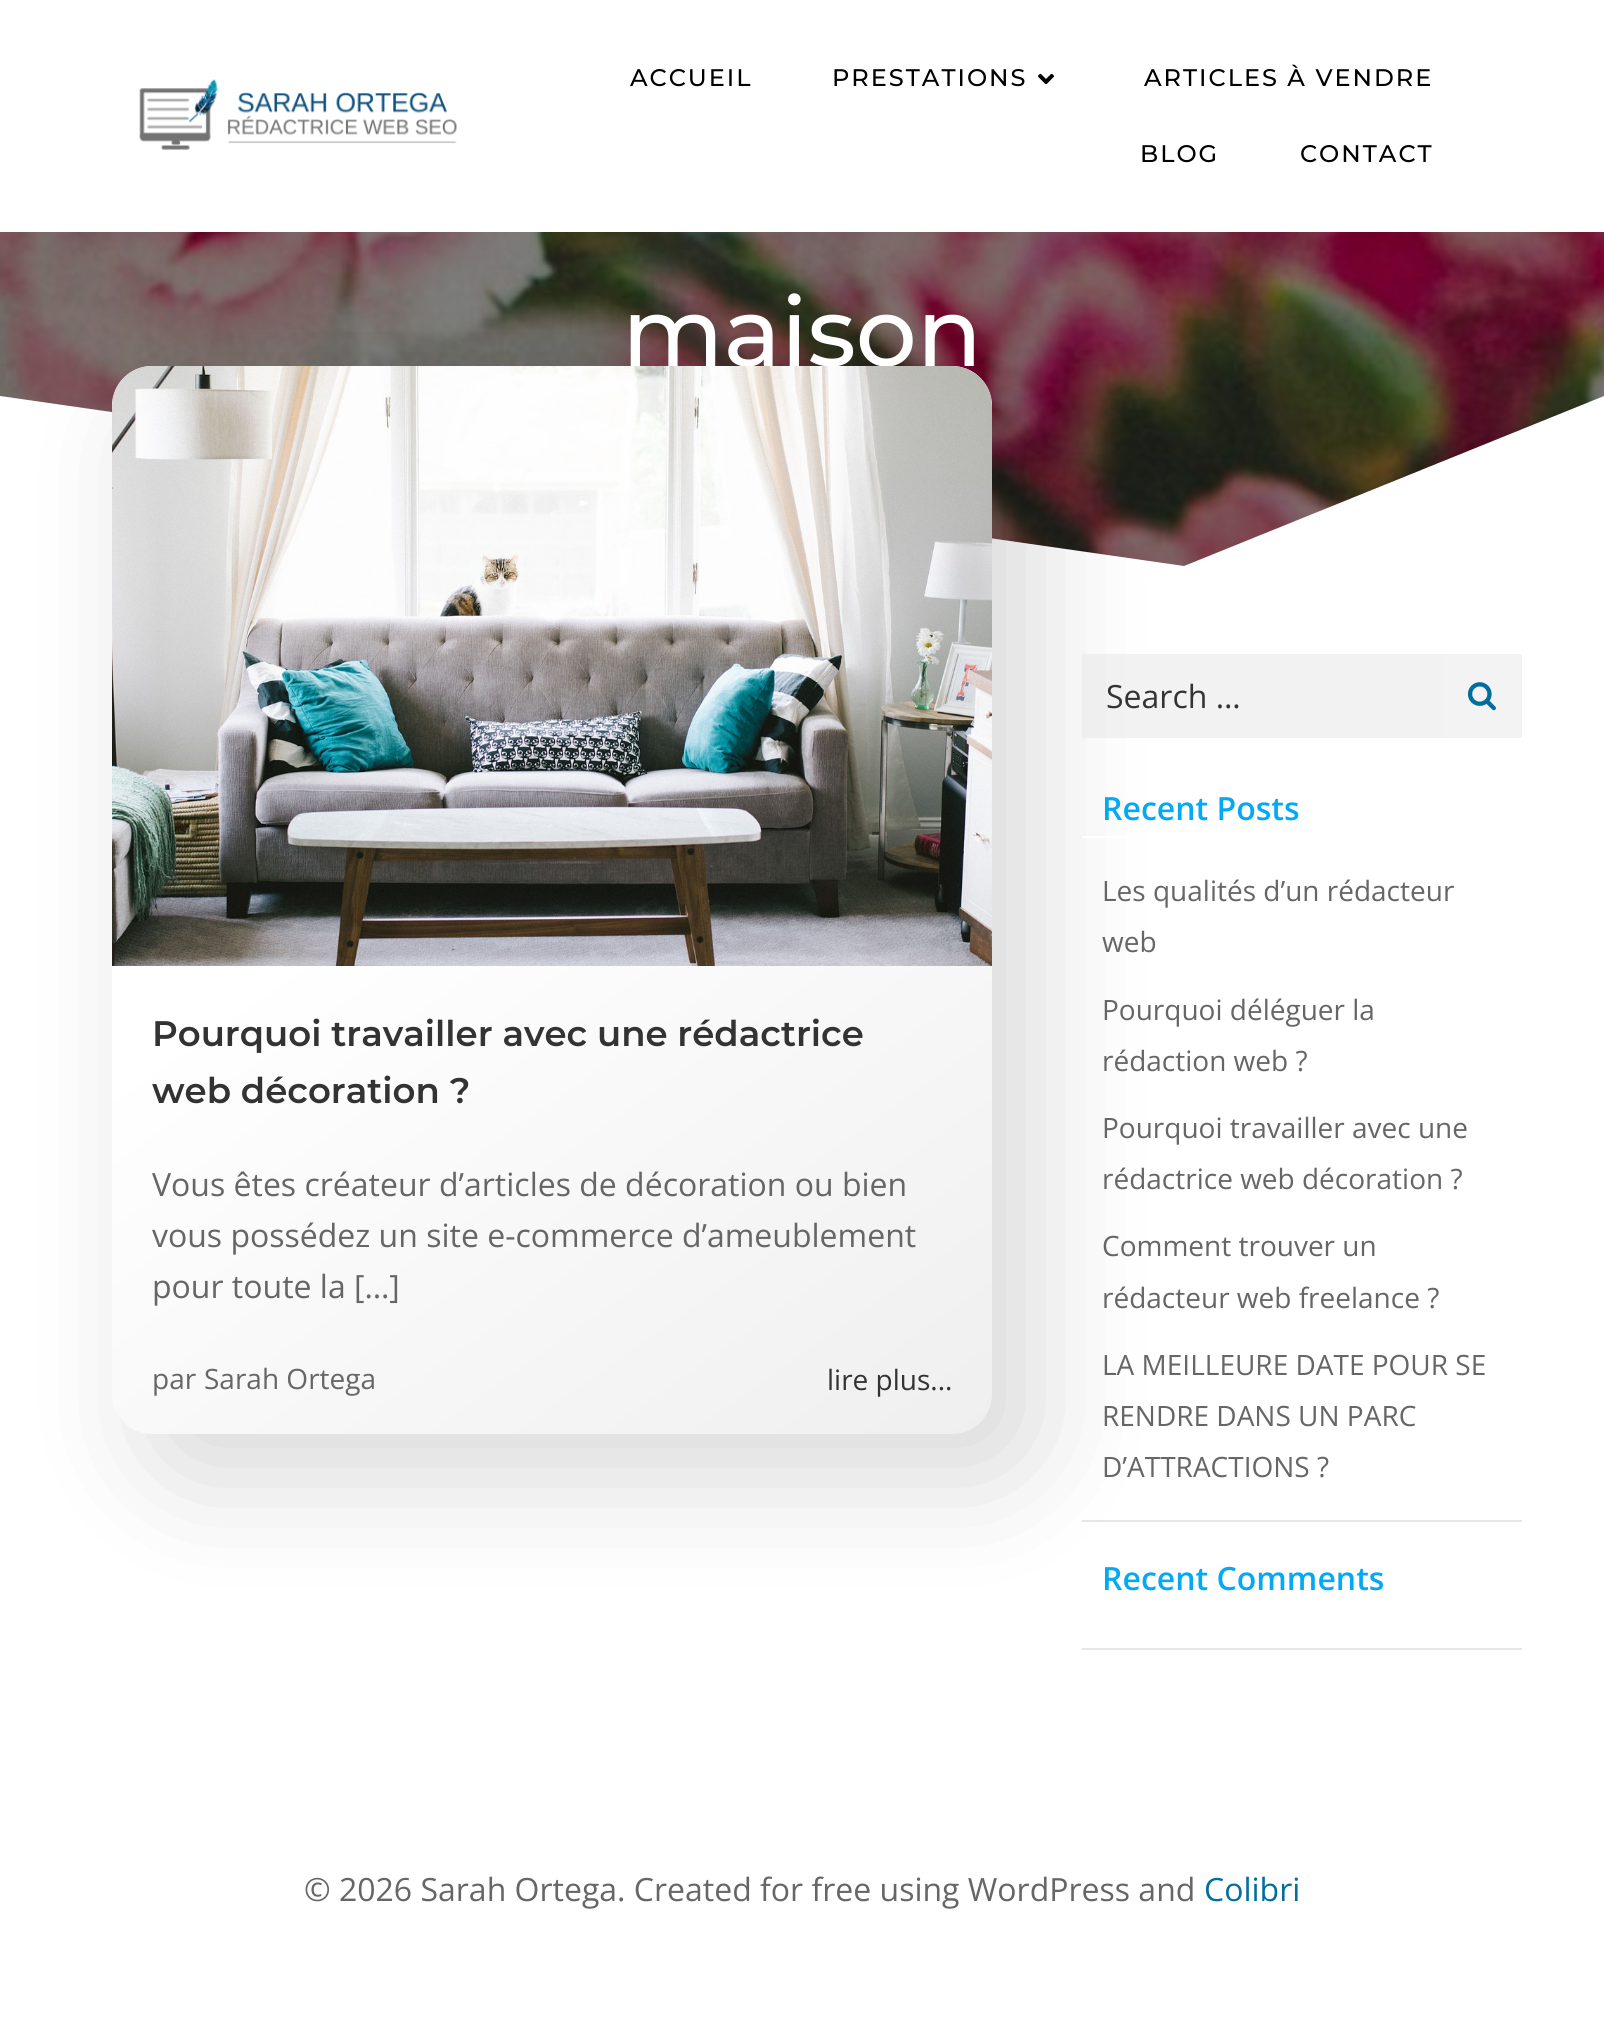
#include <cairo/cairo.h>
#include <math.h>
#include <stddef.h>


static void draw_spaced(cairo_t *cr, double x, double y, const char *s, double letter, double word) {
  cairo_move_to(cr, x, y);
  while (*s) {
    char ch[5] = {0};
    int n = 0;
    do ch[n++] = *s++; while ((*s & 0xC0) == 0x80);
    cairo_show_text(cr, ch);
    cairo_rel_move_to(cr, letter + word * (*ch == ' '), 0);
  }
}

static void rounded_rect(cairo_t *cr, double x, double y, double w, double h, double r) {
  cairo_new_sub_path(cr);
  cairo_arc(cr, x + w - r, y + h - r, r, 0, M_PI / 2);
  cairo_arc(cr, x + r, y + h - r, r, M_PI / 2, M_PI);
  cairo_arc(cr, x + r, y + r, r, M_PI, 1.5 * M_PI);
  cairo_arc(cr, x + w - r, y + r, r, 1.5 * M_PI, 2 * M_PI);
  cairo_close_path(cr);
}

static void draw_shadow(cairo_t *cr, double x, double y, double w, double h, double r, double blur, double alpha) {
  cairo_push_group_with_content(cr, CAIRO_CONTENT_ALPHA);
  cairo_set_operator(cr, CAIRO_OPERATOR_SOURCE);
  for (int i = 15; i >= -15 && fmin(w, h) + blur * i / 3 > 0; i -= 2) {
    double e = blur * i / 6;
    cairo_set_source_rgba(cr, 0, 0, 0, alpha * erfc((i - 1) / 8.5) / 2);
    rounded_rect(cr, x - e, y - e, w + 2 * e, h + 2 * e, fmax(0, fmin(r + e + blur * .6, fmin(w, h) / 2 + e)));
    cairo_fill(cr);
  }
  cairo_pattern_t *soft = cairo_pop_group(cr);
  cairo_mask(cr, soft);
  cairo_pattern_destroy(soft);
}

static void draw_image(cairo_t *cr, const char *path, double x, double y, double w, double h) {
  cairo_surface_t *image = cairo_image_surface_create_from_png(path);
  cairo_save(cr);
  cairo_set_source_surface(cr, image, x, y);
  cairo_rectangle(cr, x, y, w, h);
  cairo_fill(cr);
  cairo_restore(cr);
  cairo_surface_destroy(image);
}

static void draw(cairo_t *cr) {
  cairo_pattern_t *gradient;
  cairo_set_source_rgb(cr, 1, 1, 1);
  cairo_paint(cr);
  draw_image(cr, "images/1.png", 139, 79, 318, 71);
  draw_image(cr, "images/2.png", 1038, 73, 16, 12);
  draw_image(cr, "images/3.png", 0, 232, 1604, 334);
  cairo_set_source_rgb(cr, 1, 1, 1);
  cairo_new_path(cr);
  cairo_move_to(cr, 1184, 566);
  cairo_line_to(cr, 0, 396);
  cairo_line_to(cr, 0, 576);
  cairo_line_to(cr, 1604, 576);
  cairo_line_to(cr, 1604, 396);
  cairo_close_path(cr);
  cairo_fill(cr);
  cairo_set_source_rgb(cr, 0, 0, 0);
  draw_shadow(cr, 148, 402, 888, 1076, 44, 60, 0.15);
  cairo_set_source_rgba(cr, 230 / 255.0, 230 / 255.0, 230 / 255.0, 0.5);
  cairo_rectangle(cr, 1082, 654, 360, 84);
  cairo_fill(cr);
  cairo_set_source_rgb(cr, 243 / 255.0, 243 / 255.0, 243 / 255.0);
  cairo_rectangle(cr, 1442, 654, 80, 84);
  cairo_fill(cr);
  draw_image(cr, "images/5.png", 1467, 682, 29, 29);
  cairo_set_source_rgb(cr, 230 / 255.0, 230 / 255.0, 230 / 255.0);
  cairo_rectangle(cr, 1082, 1520, 440, 2);
  cairo_fill(cr);
  cairo_set_source_rgb(cr, 1, 1, 1);
  cairo_rectangle(cr, 1082, 836, 44, 2);
  cairo_fill(cr);
  cairo_set_source_rgb(cr, 230 / 255.0, 230 / 255.0, 230 / 255.0);
  cairo_rectangle(cr, 1082, 1648, 440, 2);
  cairo_fill(cr);
  cairo_select_font_face(cr, "Montserrat Medium", CAIRO_FONT_SLANT_NORMAL, CAIRO_FONT_WEIGHT_NORMAL);
  cairo_set_font_size(cr, 24);
  cairo_set_source_rgb(cr, 0, 0, 0);
  draw_spaced(cr, 630, 86, "ACCUEIL", 2, 0);
  draw_spaced(cr, 832, 86, "PRESTATIONS", 2, 0);
  draw_spaced(cr, 1144, 86, "ARTICLES À VENDRE", 2, 0);
  draw_spaced(cr, 1140, 162, "BLOG", 2, 0);
  draw_spaced(cr, 1300, 162, "CONTACT", 2, 0);
  cairo_set_font_size(cr, 96);
  cairo_set_source_rgb(cr, 1, 1, 1);
  cairo_move_to(cr, 622, 366);
  cairo_show_text(cr, "maison");
  gradient = cairo_pattern_create_linear(156, 335, 948, 1465);
  cairo_pattern_add_color_stop_rgba(gradient, 0.42, 1, 1, 1, 1);
  cairo_pattern_add_color_stop_rgba(gradient, 1, 239 / 255.0, 239 / 255.0, 239 / 255.0, 1);
  cairo_set_source(cr, gradient);
  cairo_pattern_destroy(gradient);
  rounded_rect(cr, 112, 366, 880, 1068, 40);
  cairo_fill(cr);
  draw_image(cr, "images/4.png", 112, 366, 880, 600);
  cairo_select_font_face(cr, "Montserrat SemiBold", CAIRO_FONT_SLANT_NORMAL, CAIRO_FONT_WEIGHT_NORMAL);
  cairo_set_font_size(cr, 35.5);
  cairo_set_source_rgb(cr, 51 / 255.0, 51 / 255.0, 51 / 255.0);
  cairo_move_to(cr, 152, 1046);
  cairo_show_text(cr, "Pourquoi travailler avec une rédactrice");
  cairo_move_to(cr, 152, 1103);
  cairo_show_text(cr, "web décoration ?");
  cairo_select_font_face(cr, "Open Sans", CAIRO_FONT_SLANT_NORMAL, CAIRO_FONT_WEIGHT_NORMAL);
  cairo_set_font_size(cr, 32);
  cairo_set_source_rgb(cr, 102 / 255.0, 102 / 255.0, 102 / 255.0);
  cairo_move_to(cr, 152, 1196);
  cairo_show_text(cr, "Vous êtes créateur d’articles de décoration ou bien");
  cairo_move_to(cr, 152, 1247);
  cairo_show_text(cr, "vous possédez un site e-commerce d’ameublement");
  cairo_move_to(cr, 152, 1298);
  cairo_show_text(cr, "pour toute la […]");
  cairo_set_font_size(cr, 28);
  cairo_move_to(cr, 152, 1389);
  cairo_show_text(cr, "par");
  cairo_move_to(cr, 204, 1389);
  cairo_show_text(cr, "Sarah Ortega");
  cairo_set_source_rgb(cr, 51 / 255.0, 51 / 255.0, 51 / 255.0);
  cairo_move_to(cr, 827, 1390);
  cairo_show_text(cr, "lire plus...");
  cairo_set_font_size(cr, 32);
  cairo_move_to(cr, 1106, 708);
  cairo_show_text(cr, "Search …");
  cairo_select_font_face(cr, "Open Sans SemiBold", CAIRO_FONT_SLANT_NORMAL, CAIRO_FONT_WEIGHT_NORMAL);
  cairo_set_source_rgb(cr, 3 / 255.0, 169 / 255.0, 244 / 255.0);
  cairo_move_to(cr, 1102, 820);
  cairo_show_text(cr, "Recent Posts");
  cairo_select_font_face(cr, "Open Sans", CAIRO_FONT_SLANT_NORMAL, CAIRO_FONT_WEIGHT_NORMAL);
  cairo_set_font_size(cr, 28);
  cairo_set_source_rgb(cr, 102 / 255.0, 102 / 255.0, 102 / 255.0);
  cairo_move_to(cr, 1102, 901);
  cairo_show_text(cr, "Les qualités d’un rédacteur");
  cairo_move_to(cr, 1102, 952);
  cairo_show_text(cr, "web");
  cairo_move_to(cr, 1102, 1020);
  cairo_show_text(cr, "Pourquoi déléguer la");
  cairo_move_to(cr, 1102, 1071);
  cairo_show_text(cr, "rédaction web ?");
  cairo_move_to(cr, 1102, 1138);
  cairo_show_text(cr, "Pourquoi travailler avec une");
  cairo_move_to(cr, 1102, 1189);
  cairo_show_text(cr, "rédactrice web décoration ?");
  cairo_move_to(cr, 1102, 1256);
  cairo_show_text(cr, "Comment trouver un");
  cairo_move_to(cr, 1102, 1308);
  cairo_show_text(cr, "rédacteur web freelance ?");
  cairo_move_to(cr, 1102, 1375);
  cairo_show_text(cr, "LA MEILLEURE DATE POUR SE");
  cairo_move_to(cr, 1102, 1426);
  cairo_show_text(cr, "RENDRE DANS UN PARC");
  cairo_move_to(cr, 1102, 1477);
  cairo_show_text(cr, "D’ATTRACTIONS ?");
  cairo_select_font_face(cr, "Open Sans SemiBold", CAIRO_FONT_SLANT_NORMAL, CAIRO_FONT_WEIGHT_NORMAL);
  cairo_set_font_size(cr, 32);
  cairo_set_source_rgb(cr, 3 / 255.0, 169 / 255.0, 244 / 255.0);
  cairo_move_to(cr, 1102, 1590);
  cairo_show_text(cr, "Recent Comments");
  cairo_select_font_face(cr, "Open Sans", CAIRO_FONT_SLANT_NORMAL, CAIRO_FONT_WEIGHT_NORMAL);
  cairo_set_source_rgb(cr, 102 / 255.0, 102 / 255.0, 102 / 255.0);
  cairo_move_to(cr, 304, 1901);
  cairo_show_text(cr, "© 2026 Sarah Ortega. Created for free using WordPress and");
  cairo_set_source_rgb(cr, 2 / 255.0, 110 / 255.0, 159 / 255.0);
  cairo_move_to(cr, 1204, 1901);
  cairo_show_text(cr, "Colibri");
}

int main(void) {
  cairo_surface_t *surface = cairo_image_surface_create(CAIRO_FORMAT_RGB24, 1604, 2018);
  cairo_t *cr = cairo_create(surface);
  cairo_font_options_t *options = cairo_font_options_create();
  cairo_font_options_set_hint_metrics(options, CAIRO_HINT_METRICS_OFF);
  cairo_font_options_set_hint_style(options, CAIRO_HINT_STYLE_NONE);
  cairo_set_font_options(cr, options);
  cairo_set_miter_limit(cr, 4);
  draw(cr);
  cairo_surface_write_to_png(surface, "out.png");
  cairo_font_options_destroy(options);
  cairo_destroy(cr);
  cairo_surface_destroy(surface);
  return 0;
}
